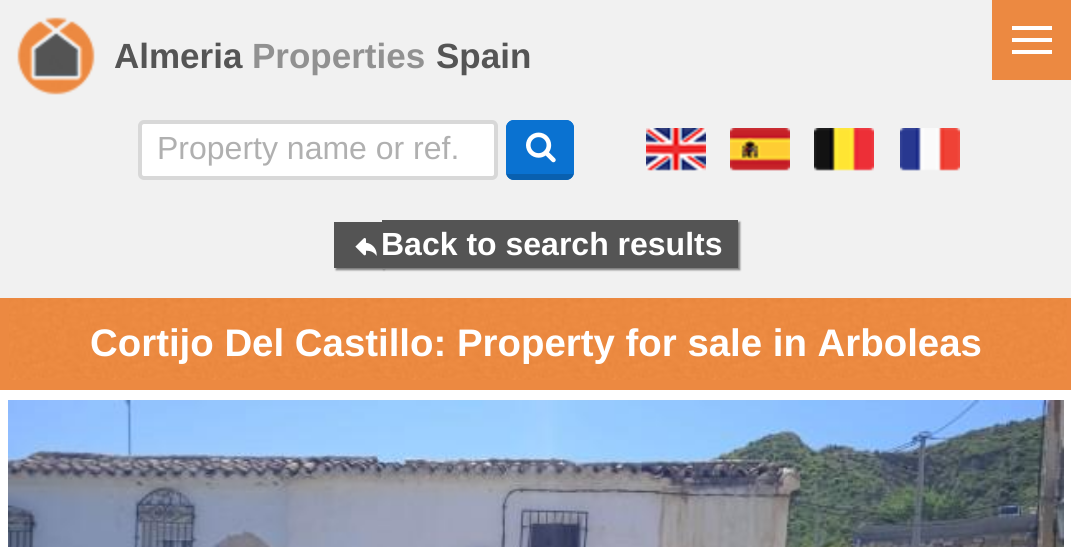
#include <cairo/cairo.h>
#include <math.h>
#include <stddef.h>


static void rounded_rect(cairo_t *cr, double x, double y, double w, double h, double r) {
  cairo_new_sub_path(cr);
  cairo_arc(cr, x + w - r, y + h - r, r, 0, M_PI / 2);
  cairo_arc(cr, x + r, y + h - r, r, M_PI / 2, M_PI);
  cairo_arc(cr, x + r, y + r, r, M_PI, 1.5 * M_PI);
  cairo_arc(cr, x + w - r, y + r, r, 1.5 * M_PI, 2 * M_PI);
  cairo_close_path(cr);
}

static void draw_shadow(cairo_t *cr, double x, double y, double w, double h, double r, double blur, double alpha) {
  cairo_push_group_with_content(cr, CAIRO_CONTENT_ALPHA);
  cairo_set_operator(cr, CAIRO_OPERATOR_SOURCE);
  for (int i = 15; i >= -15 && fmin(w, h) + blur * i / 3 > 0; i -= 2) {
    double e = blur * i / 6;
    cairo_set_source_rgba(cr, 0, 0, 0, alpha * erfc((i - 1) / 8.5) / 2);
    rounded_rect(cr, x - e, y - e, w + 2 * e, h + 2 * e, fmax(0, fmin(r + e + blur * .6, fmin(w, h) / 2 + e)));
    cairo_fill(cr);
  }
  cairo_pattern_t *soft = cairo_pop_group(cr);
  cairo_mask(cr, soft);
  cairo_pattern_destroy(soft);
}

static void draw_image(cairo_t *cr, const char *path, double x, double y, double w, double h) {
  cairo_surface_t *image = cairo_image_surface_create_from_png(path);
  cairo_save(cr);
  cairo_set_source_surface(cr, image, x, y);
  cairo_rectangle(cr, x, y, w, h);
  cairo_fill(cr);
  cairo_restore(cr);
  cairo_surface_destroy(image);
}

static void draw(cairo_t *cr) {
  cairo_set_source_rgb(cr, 241 / 255.0, 241 / 255.0, 241 / 255.0);
  cairo_paint(cr);
  draw_image(cr, "images/1.png", 17, 17, 78, 78);
  cairo_set_source_rgb(cr, 1, 1, 1);
  rounded_rect(cr, 140, 122, 356, 56, 4);
  cairo_fill_preserve(cr);
  cairo_set_source_rgb(cr, 216 / 255.0, 216 / 255.0, 216 / 255.0);
  cairo_set_line_width(cr, 4);
  cairo_stroke(cr);
  cairo_set_source_rgb(cr, 10 / 255.0, 114 / 255.0, 209 / 255.0);
  rounded_rect(cr, 506, 120, 68, 60, 8);
  cairo_fill(cr);
  cairo_save(cr);
  rounded_rect(cr, 506, 120, 68, 60, 8);
  cairo_clip(cr);
  cairo_new_path(cr);
  cairo_move_to(cr, 514, 120);
  cairo_line_to(cr, 566, 120);
  cairo_curve_to(cr, 570.5, 120, 574, 123.5, 574, 128);
  cairo_line_to(cr, 574, 174);
  cairo_line_to(cr, 506, 174);
  cairo_line_to(cr, 506, 128);
  cairo_curve_to(cr, 506, 123.5, 509.5, 120, 514, 120);
  cairo_close_path(cr);
  cairo_fill(cr);
  cairo_set_source_rgb(cr, 9 / 255.0, 96 / 255.0, 175 / 255.0);
  cairo_rectangle(cr, 506, 174, 68, 6);
  cairo_fill(cr);
  cairo_restore(cr);
  draw_image(cr, "images/2.png", 526, 132, 30, 31);
  draw_image(cr, "images/3.png", 646, 128, 60, 43);
  draw_image(cr, "images/4.png", 730, 128, 60, 43);
  draw_image(cr, "images/5.png", 814, 128, 60, 43);
  draw_image(cr, "images/6.png", 900, 128, 60, 43);
  cairo_set_source_rgb(cr, 236 / 255.0, 137 / 255.0, 65 / 255.0);
  cairo_rectangle(cr, 992, 0, 79, 80);
  cairo_fill(cr);
  cairo_set_source_rgb(cr, 1, 1, 1);
  cairo_rectangle(cr, 1012, 26, 40, 4);
  cairo_fill(cr);
  cairo_rectangle(cr, 1012, 38, 40, 4);
  cairo_fill(cr);
  cairo_rectangle(cr, 1012, 50, 40, 4);
  cairo_fill(cr);
  cairo_rectangle(cr, 0, 390, 1071, 157);
  cairo_fill(cr);
  cairo_set_source_rgb(cr, 0, 0, 0);
  draw_shadow(cr, 336, 224, 48, 46, 0, 1, 0.5);
  cairo_set_source_rgb(cr, 84 / 255.0, 84 / 255.0, 84 / 255.0);
  cairo_rectangle(cr, 334, 222, 48, 46);
  cairo_fill(cr);
  draw_image(cr, "images/7.png", 355, 238, 22, 18);
  cairo_set_source_rgb(cr, 0, 0, 0);
  draw_shadow(cr, 384, 222, 356, 48, 0, 1, 0.5);
  cairo_set_source_rgb(cr, 84 / 255.0, 84 / 255.0, 84 / 255.0);
  cairo_rectangle(cr, 382, 220, 356, 48);
  cairo_fill(cr);
  cairo_set_source_rgb(cr, 236 / 255.0, 137 / 255.0, 65 / 255.0);
  cairo_rectangle(cr, 0, 298, 1071, 92);
  cairo_fill(cr);
  draw_image(cr, "images/8.png", 9, 299, 1058, 81);
  draw_image(cr, "images/9.png", 8, 400, 1056, 147);
  cairo_select_font_face(cr, "Liberation Sans", CAIRO_FONT_SLANT_NORMAL, CAIRO_FONT_WEIGHT_BOLD);
  cairo_set_font_size(cr, 35);
  cairo_set_source_rgb(cr, 85 / 255.0, 85 / 255.0, 85 / 255.0);
  cairo_move_to(cr, 114, 68);
  cairo_show_text(cr, "Almeria");
  cairo_set_source_rgb(cr, 145 / 255.0, 145 / 255.0, 145 / 255.0);
  cairo_move_to(cr, 252, 68);
  cairo_show_text(cr, "Properties");
  cairo_set_source_rgb(cr, 85 / 255.0, 85 / 255.0, 85 / 255.0);
  cairo_move_to(cr, 436, 68);
  cairo_show_text(cr, "Spain");
  cairo_select_font_face(cr, "Liberation Sans", CAIRO_FONT_SLANT_NORMAL, CAIRO_FONT_WEIGHT_NORMAL);
  cairo_set_font_size(cr, 32);
  cairo_set_source_rgb(cr, 176 / 255.0, 176 / 255.0, 176 / 255.0);
  cairo_move_to(cr, 157, 159);
  cairo_show_text(cr, "Property name or ref.");
  cairo_select_font_face(cr, "Liberation Sans", CAIRO_FONT_SLANT_NORMAL, CAIRO_FONT_WEIGHT_BOLD);
  cairo_set_source_rgb(cr, 1, 1, 1);
  cairo_move_to(cr, 381, 255);
  cairo_show_text(cr, "Back to search results");
  cairo_set_font_size(cr, 38.4);
  cairo_move_to(cr, 90, 356);
  cairo_show_text(cr, "Cortijo Del Castillo: Property for sale in Arboleas");
}

int main(void) {
  cairo_surface_t *surface = cairo_image_surface_create(CAIRO_FORMAT_RGB24, 1071, 547);
  cairo_t *cr = cairo_create(surface);
  cairo_font_options_t *options = cairo_font_options_create();
  cairo_font_options_set_hint_metrics(options, CAIRO_HINT_METRICS_OFF);
  cairo_font_options_set_hint_style(options, CAIRO_HINT_STYLE_NONE);
  cairo_set_font_options(cr, options);
  cairo_set_miter_limit(cr, 4);
  draw(cr);
  cairo_surface_write_to_png(surface, "out.png");
  cairo_font_options_destroy(options);
  cairo_destroy(cr);
  cairo_surface_destroy(surface);
  return 0;
}
